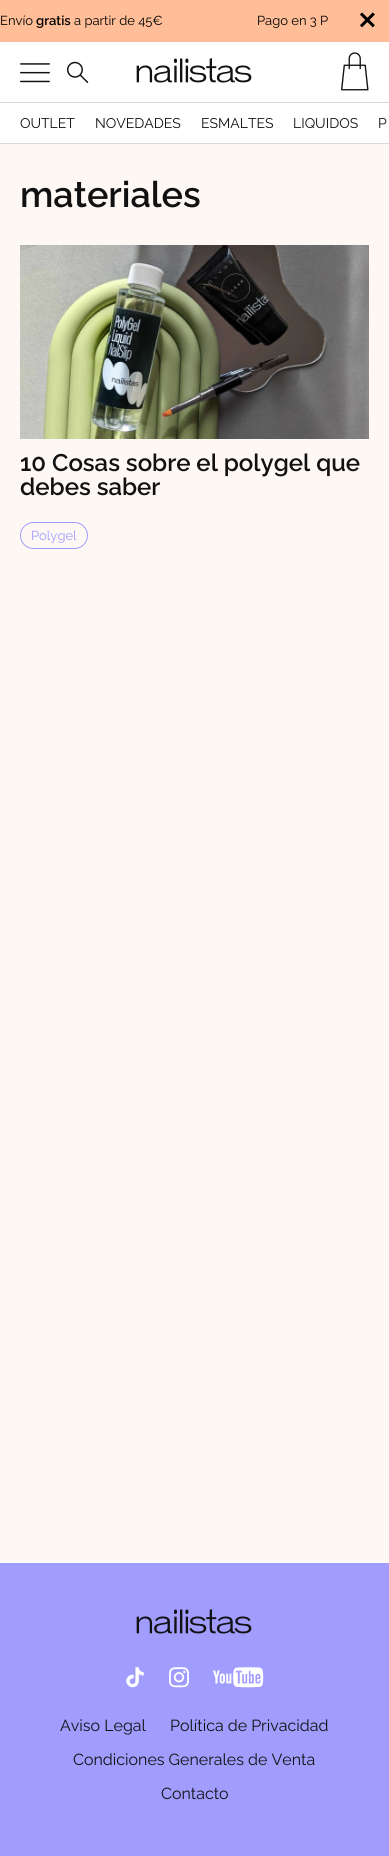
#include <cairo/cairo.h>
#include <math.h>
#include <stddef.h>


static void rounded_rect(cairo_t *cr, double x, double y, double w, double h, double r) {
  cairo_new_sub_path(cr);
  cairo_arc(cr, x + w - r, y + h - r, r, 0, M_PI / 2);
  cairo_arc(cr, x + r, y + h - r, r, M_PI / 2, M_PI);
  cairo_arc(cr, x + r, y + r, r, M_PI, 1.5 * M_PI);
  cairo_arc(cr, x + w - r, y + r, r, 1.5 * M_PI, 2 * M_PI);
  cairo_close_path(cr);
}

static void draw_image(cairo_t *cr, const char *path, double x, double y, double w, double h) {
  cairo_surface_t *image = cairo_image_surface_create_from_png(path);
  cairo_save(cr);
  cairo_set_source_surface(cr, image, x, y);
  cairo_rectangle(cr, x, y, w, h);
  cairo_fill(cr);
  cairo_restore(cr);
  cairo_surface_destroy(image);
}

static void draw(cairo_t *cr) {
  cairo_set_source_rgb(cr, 1, 1, 1);
  cairo_paint(cr);
  cairo_set_source_rgb(cr, 1, 190 / 255.0, 152 / 255.0);
  cairo_rectangle(cr, 0, 0, 389, 42);
  cairo_fill(cr);
  cairo_set_source_rgb(cr, 225 / 255.0, 214 / 255.0, 217 / 255.0);
  cairo_rectangle(cr, 0, 102, 389, 1);
  cairo_fill(cr);
  draw_image(cr, "images/1.png", 20, 63, 30, 20);
  draw_image(cr, "images/2.png", 67, 61, 22, 22);
  draw_image(cr, "images/3.png", 136, 58, 116, 25);
  draw_image(cr, "images/4.png", 341, 52, 28, 39);
  cairo_rectangle(cr, 0, 143, 389, 1);
  cairo_fill(cr);
  cairo_set_source_rgb(cr, 253 / 255.0, 248 / 255.0, 244 / 255.0);
  cairo_rectangle(cr, 0, 144, 389, 1419);
  cairo_fill(cr);
  draw_image(cr, "images/5.png", 20, 245, 349, 194);
  rounded_rect(cr, 20.5, 522.5, 67, 26, 13);
  cairo_set_source_rgb(cr, 161 / 255.0, 157 / 255.0, 1);
  cairo_set_line_width(cr, 1);
  cairo_stroke(cr);
  cairo_rectangle(cr, 0, 1563, 389, 293);
  cairo_fill(cr);
  draw_image(cr, "images/6.png", 136, 1609, 116, 25);
  draw_image(cr, "images/7.png", 126, 1667, 18, 21);
  draw_image(cr, "images/8.png", 169, 1667, 20, 21);
  draw_image(cr, "images/9.png", 213, 1667, 51, 21);
  cairo_select_font_face(cr, "Raleway Thin", CAIRO_FONT_SLANT_NORMAL, CAIRO_FONT_WEIGHT_NORMAL);
  cairo_set_font_size(cr, 13);
  cairo_set_source_rgb(cr, 0, 0, 0);
  cairo_move_to(cr, 0, 25);
  cairo_show_text(cr, "Envío");
  cairo_select_font_face(cr, "Raleway SemiBold", CAIRO_FONT_SLANT_NORMAL, CAIRO_FONT_WEIGHT_NORMAL);
  cairo_move_to(cr, 36, 25);
  cairo_show_text(cr, "gratis");
  cairo_select_font_face(cr, "Raleway Thin", CAIRO_FONT_SLANT_NORMAL, CAIRO_FONT_WEIGHT_NORMAL);
  cairo_move_to(cr, 74, 25);
  cairo_show_text(cr, "a partir de 45€");
  cairo_move_to(cr, 257, 25);
  cairo_show_text(cr, "Pago en 3 P");
  cairo_select_font_face(cr, "DejaVu Sans", CAIRO_FONT_SLANT_NORMAL, CAIRO_FONT_WEIGHT_BOLD);
  cairo_set_font_size(cr, 24);
  cairo_move_to(cr, 357, 29);
  cairo_show_text(cr, "✕");
  cairo_select_font_face(cr, "Raleway Thin", CAIRO_FONT_SLANT_NORMAL, CAIRO_FONT_WEIGHT_NORMAL);
  cairo_set_font_size(cr, 14);
  cairo_set_source_rgb(cr, 17 / 255.0, 17 / 255.0, 17 / 255.0);
  cairo_move_to(cr, 20, 128);
  cairo_show_text(cr, "OUTLET");
  cairo_move_to(cr, 95, 128);
  cairo_show_text(cr, "NOVEDADES");
  cairo_move_to(cr, 201, 128);
  cairo_show_text(cr, "ESMALTES");
  cairo_move_to(cr, 293, 128);
  cairo_show_text(cr, "LIQUIDOS");
  cairo_move_to(cr, 378, 128);
  cairo_show_text(cr, "P");
  cairo_select_font_face(cr, "Raleway SemiBold", CAIRO_FONT_SLANT_NORMAL, CAIRO_FONT_WEIGHT_NORMAL);
  cairo_set_font_size(cr, 36);
  cairo_move_to(cr, 20, 207);
  cairo_show_text(cr, "materiales");
  cairo_set_font_size(cr, 24);
  cairo_move_to(cr, 20, 471);
  cairo_show_text(cr, "10 Cosas sobre el polygel que");
  cairo_move_to(cr, 20, 495);
  cairo_show_text(cr, "debes saber");
  cairo_select_font_face(cr, "Raleway Thin", CAIRO_FONT_SLANT_NORMAL, CAIRO_FONT_WEIGHT_NORMAL);
  cairo_set_font_size(cr, 13);
  cairo_set_source_rgb(cr, 161 / 255.0, 157 / 255.0, 1);
  cairo_move_to(cr, 31, 540);
  cairo_show_text(cr, "Polygel");
  cairo_set_font_size(cr, 16);
  cairo_set_source_rgb(cr, 17 / 255.0, 17 / 255.0, 17 / 255.0);
  cairo_move_to(cr, 60, 1731);
  cairo_show_text(cr, "Aviso Legal");
  cairo_move_to(cr, 170, 1731);
  cairo_show_text(cr, "Política de Privacidad");
  cairo_move_to(cr, 73, 1765);
  cairo_show_text(cr, "Condiciones Generales de Venta");
  cairo_move_to(cr, 161, 1799);
  cairo_show_text(cr, "Contacto");
}

int main(void) {
  cairo_surface_t *surface = cairo_image_surface_create(CAIRO_FORMAT_RGB24, 389, 1856);
  cairo_t *cr = cairo_create(surface);
  cairo_font_options_t *options = cairo_font_options_create();
  cairo_font_options_set_hint_metrics(options, CAIRO_HINT_METRICS_OFF);
  cairo_font_options_set_hint_style(options, CAIRO_HINT_STYLE_NONE);
  cairo_set_font_options(cr, options);
  cairo_set_miter_limit(cr, 4);
  draw(cr);
  cairo_surface_write_to_png(surface, "out.png");
  cairo_font_options_destroy(options);
  cairo_destroy(cr);
  cairo_surface_destroy(surface);
  return 0;
}
